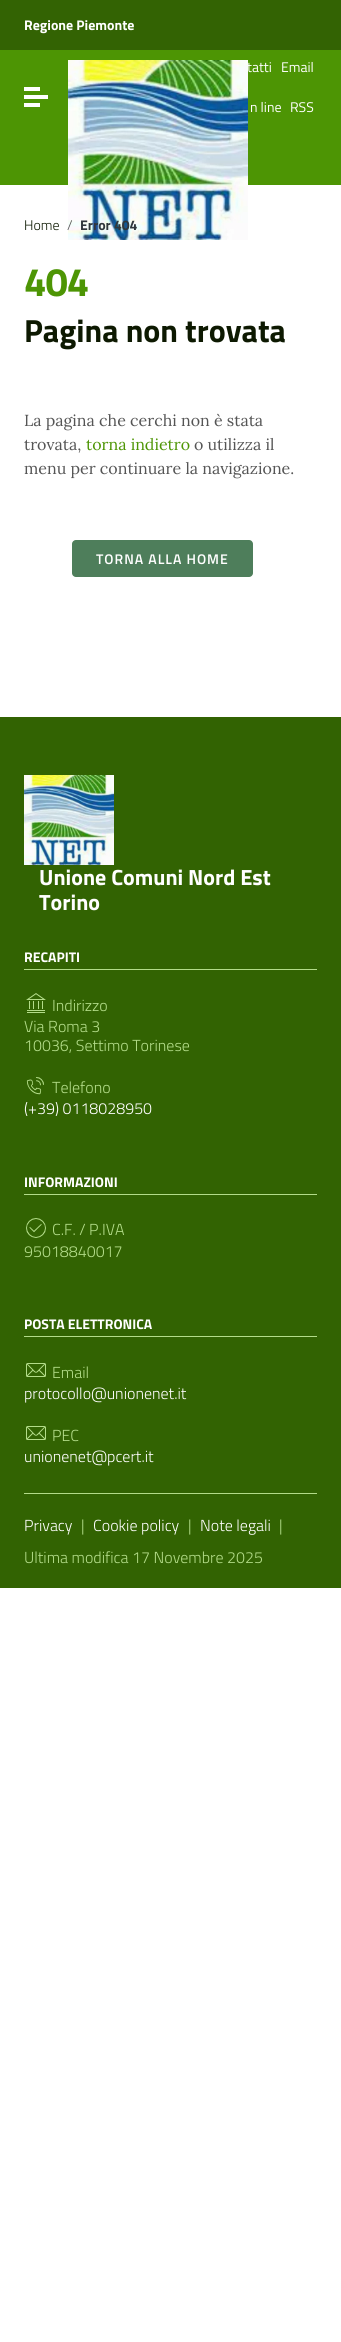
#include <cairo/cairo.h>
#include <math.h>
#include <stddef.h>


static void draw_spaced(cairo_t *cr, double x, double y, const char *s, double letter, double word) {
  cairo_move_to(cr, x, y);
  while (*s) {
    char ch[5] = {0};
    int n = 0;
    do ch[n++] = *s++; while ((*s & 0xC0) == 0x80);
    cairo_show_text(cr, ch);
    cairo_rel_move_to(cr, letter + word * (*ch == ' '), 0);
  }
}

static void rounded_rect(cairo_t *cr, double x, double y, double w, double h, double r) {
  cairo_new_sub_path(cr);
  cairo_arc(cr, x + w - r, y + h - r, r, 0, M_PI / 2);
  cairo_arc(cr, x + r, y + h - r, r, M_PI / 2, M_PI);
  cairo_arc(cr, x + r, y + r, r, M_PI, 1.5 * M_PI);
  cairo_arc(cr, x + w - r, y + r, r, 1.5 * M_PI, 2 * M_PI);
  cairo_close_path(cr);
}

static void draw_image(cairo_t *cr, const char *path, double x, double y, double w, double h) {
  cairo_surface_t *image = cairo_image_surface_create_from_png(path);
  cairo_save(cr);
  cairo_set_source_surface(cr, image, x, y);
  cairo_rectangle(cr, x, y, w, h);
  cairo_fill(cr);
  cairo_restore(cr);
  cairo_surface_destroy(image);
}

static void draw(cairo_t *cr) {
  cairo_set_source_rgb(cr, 1, 1, 1);
  cairo_paint(cr);
  cairo_set_source_rgb(cr, 77 / 255.0, 149 / 255.0, 4 / 255.0);
  cairo_rectangle(cr, 0, 50, 341, 135);
  cairo_fill(cr);
  cairo_set_source_rgb(cr, 51 / 255.0, 99 / 255.0, 3 / 255.0);
  cairo_rectangle(cr, 0, 0, 341, 50);
  cairo_fill(cr);
  cairo_set_source_rgb(cr, 1, 1, 1);
  cairo_rectangle(cr, 24, 87, 16, 4);
  cairo_fill(cr);
  cairo_rectangle(cr, 24, 95, 24, 4);
  cairo_fill(cr);
  cairo_rectangle(cr, 24, 103, 16, 4);
  cairo_fill(cr);
  cairo_set_source_rgb(cr, 78 / 255.0, 126 / 255.0, 91 / 255.0);
  rounded_rect(cr, 72, 540, 181, 37, 4);
  cairo_fill(cr);
  cairo_set_source_rgb(cr, 50 / 255.0, 99 / 255.0, 2 / 255.0);
  cairo_rectangle(cr, 0, 717, 341, 871);
  cairo_fill(cr);
  draw_image(cr, "images/2.png", 24, 775, 90, 90);
  cairo_set_source_rgb(cr, 179 / 255.0, 220 / 255.0, 137 / 255.0);
  cairo_rectangle(cr, 24, 969, 293, 1);
  cairo_fill(cr);
  draw_image(cr, "images/3.png", 26, 993, 20, 20);
  draw_image(cr, "images/4.png", 26, 1077, 18, 18);
  cairo_rectangle(cr, 24, 1194, 293, 1);
  cairo_fill(cr);
  draw_image(cr, "images/5.png", 26, 1218, 20, 20);
  cairo_rectangle(cr, 24, 1336, 293, 1);
  cairo_fill(cr);
  draw_image(cr, "images/6.png", 26, 1363, 20, 14);
  draw_image(cr, "images/6.png", 26, 1426, 20, 14);
  cairo_rectangle(cr, 24, 1493, 293, 1);
  cairo_fill(cr);
  cairo_select_font_face(cr, "Titillium Web", CAIRO_FONT_SLANT_NORMAL, CAIRO_FONT_WEIGHT_BOLD);
  cairo_set_font_size(cr, 14);
  cairo_set_source_rgb(cr, 1, 1, 1);
  cairo_move_to(cr, 24, 30);
  cairo_show_text(cr, "Regione Piemonte");
  cairo_select_font_face(cr, "Titillium Web", CAIRO_FONT_SLANT_NORMAL, CAIRO_FONT_WEIGHT_NORMAL);
  cairo_move_to(cr, 247, 72);
  cairo_show_text(cr, "tatti");
  cairo_move_to(cr, 281, 72);
  cairo_show_text(cr, "Email");
  cairo_move_to(cr, 250, 112);
  cairo_show_text(cr, "n line");
  cairo_move_to(cr, 290, 112);
  cairo_show_text(cr, "RSS");
  draw_image(cr, "images/1.png", 68, 60, 180, 180);
  cairo_select_font_face(cr, "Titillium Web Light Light", CAIRO_FONT_SLANT_NORMAL, CAIRO_FONT_WEIGHT_NORMAL);
  cairo_set_source_rgb(cr, 13 / 255.0, 25 / 255.0, 1 / 255.0);
  cairo_move_to(cr, 24, 230);
  cairo_show_text(cr, "Home");
  cairo_set_source_rgb(cr, 85 / 255.0, 85 / 255.0, 85 / 255.0);
  cairo_move_to(cr, 67, 230);
  cairo_show_text(cr, "/");
  cairo_select_font_face(cr, "Titillium Web", CAIRO_FONT_SLANT_NORMAL, CAIRO_FONT_WEIGHT_BOLD);
  cairo_set_source_rgb(cr, 48 / 255.0, 55 / 255.0, 61 / 255.0);
  cairo_move_to(cr, 80, 230);
  cairo_show_text(cr, "Error 404");
  cairo_set_font_size(cr, 40);
  cairo_set_source_rgb(cr, 77 / 255.0, 149 / 255.0, 4 / 255.0);
  draw_spaced(cr, 24, 296, "404", -1, 0);
  cairo_set_font_size(cr, 32);
  cairo_set_source_rgb(cr, 13 / 255.0, 25 / 255.0, 1 / 255.0);
  cairo_move_to(cr, 24, 342);
  cairo_show_text(cr, "Pagina non trovata");
  cairo_select_font_face(cr, "Lora", CAIRO_FONT_SLANT_NORMAL, CAIRO_FONT_WEIGHT_NORMAL);
  cairo_set_font_size(cr, 16);
  cairo_set_source_rgb(cr, 85 / 255.0, 85 / 255.0, 85 / 255.0);
  cairo_move_to(cr, 24, 426);
  cairo_show_text(cr, "La pagina che cerchi non è stata");
  cairo_move_to(cr, 24, 450);
  cairo_show_text(cr, "trovata,");
  cairo_set_source_rgb(cr, 77 / 255.0, 149 / 255.0, 4 / 255.0);
  cairo_move_to(cr, 86, 450);
  cairo_show_text(cr, "torna indietro");
  cairo_set_source_rgb(cr, 85 / 255.0, 85 / 255.0, 85 / 255.0);
  cairo_move_to(cr, 194, 450);
  cairo_show_text(cr, "o utilizza il");
  cairo_move_to(cr, 24, 474);
  cairo_show_text(cr, "menu per continuare la navigazione.");
  cairo_select_font_face(cr, "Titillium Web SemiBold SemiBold", CAIRO_FONT_SLANT_NORMAL, CAIRO_FONT_WEIGHT_NORMAL);
  cairo_set_font_size(cr, 14);
  cairo_set_source_rgb(cr, 1, 1, 1);
  draw_spaced(cr, 96, 564, "TORNA ALLA HOME", 1, 0);
  cairo_select_font_face(cr, "Titillium Web", CAIRO_FONT_SLANT_NORMAL, CAIRO_FONT_WEIGHT_BOLD);
  cairo_set_font_size(cr, 22);
  cairo_move_to(cr, 39, 885);
  cairo_show_text(cr, "Unione Comuni Nord Est");
  cairo_move_to(cr, 39, 910);
  cairo_show_text(cr, "Torino");
  cairo_set_font_size(cr, 14);
  cairo_move_to(cr, 24, 962);
  cairo_show_text(cr, "RECAPITI");
  cairo_select_font_face(cr, "Titillium Web Light Light", CAIRO_FONT_SLANT_NORMAL, CAIRO_FONT_WEIGHT_NORMAL);
  cairo_set_font_size(cr, 16);
  cairo_set_source_rgb(cr, 179 / 255.0, 220 / 255.0, 137 / 255.0);
  cairo_move_to(cr, 52, 1011);
  cairo_show_text(cr, "Indirizzo");
  cairo_move_to(cr, 24, 1032);
  cairo_show_text(cr, "Via Roma 3");
  cairo_move_to(cr, 24, 1051);
  cairo_show_text(cr, "10036, Settimo Torinese");
  cairo_move_to(cr, 52, 1093);
  cairo_show_text(cr, "Telefono");
  cairo_set_source_rgb(cr, 1, 1, 1);
  cairo_move_to(cr, 24, 1114);
  cairo_show_text(cr, "(+39) 0118028950");
  cairo_select_font_face(cr, "Titillium Web", CAIRO_FONT_SLANT_NORMAL, CAIRO_FONT_WEIGHT_BOLD);
  cairo_set_font_size(cr, 14);
  cairo_move_to(cr, 24, 1187);
  cairo_show_text(cr, "INFORMAZIONI");
  cairo_select_font_face(cr, "Titillium Web Light Light", CAIRO_FONT_SLANT_NORMAL, CAIRO_FONT_WEIGHT_NORMAL);
  cairo_set_font_size(cr, 16);
  cairo_set_source_rgb(cr, 179 / 255.0, 220 / 255.0, 137 / 255.0);
  cairo_move_to(cr, 52, 1235);
  cairo_show_text(cr, "C.F. / P.IVA");
  cairo_move_to(cr, 24, 1257);
  cairo_show_text(cr, "95018840017");
  cairo_select_font_face(cr, "Titillium Web", CAIRO_FONT_SLANT_NORMAL, CAIRO_FONT_WEIGHT_BOLD);
  cairo_set_font_size(cr, 14);
  cairo_set_source_rgb(cr, 1, 1, 1);
  cairo_move_to(cr, 24, 1329);
  cairo_show_text(cr, "POSTA ELETTRONICA");
  cairo_select_font_face(cr, "Titillium Web Light Light", CAIRO_FONT_SLANT_NORMAL, CAIRO_FONT_WEIGHT_NORMAL);
  cairo_set_font_size(cr, 16);
  cairo_set_source_rgb(cr, 179 / 255.0, 220 / 255.0, 137 / 255.0);
  cairo_move_to(cr, 52, 1378);
  cairo_show_text(cr, "Email");
  cairo_set_source_rgb(cr, 1, 1, 1);
  cairo_move_to(cr, 24, 1399);
  cairo_show_text(cr, "protocollo@unionenet.it");
  cairo_set_source_rgb(cr, 179 / 255.0, 220 / 255.0, 137 / 255.0);
  cairo_move_to(cr, 52, 1441);
  cairo_show_text(cr, "PEC");
  cairo_set_source_rgb(cr, 1, 1, 1);
  cairo_move_to(cr, 24, 1462);
  cairo_show_text(cr, "unionenet@pcert.it");
  cairo_move_to(cr, 24, 1531);
  cairo_show_text(cr, "Privacy");
  cairo_set_source_rgb(cr, 179 / 255.0, 220 / 255.0, 137 / 255.0);
  cairo_move_to(cr, 81, 1531);
  cairo_show_text(cr, "|");
  cairo_set_source_rgb(cr, 1, 1, 1);
  cairo_move_to(cr, 93, 1531);
  cairo_show_text(cr, "Cookie policy");
  cairo_set_source_rgb(cr, 179 / 255.0, 220 / 255.0, 137 / 255.0);
  cairo_move_to(cr, 188, 1531);
  cairo_show_text(cr, "|");
  cairo_set_source_rgb(cr, 1, 1, 1);
  cairo_move_to(cr, 200, 1531);
  cairo_show_text(cr, "Note legali");
  cairo_set_source_rgb(cr, 179 / 255.0, 220 / 255.0, 137 / 255.0);
  cairo_move_to(cr, 279, 1531);
  cairo_show_text(cr, "|");
  cairo_move_to(cr, 24, 1563);
  cairo_show_text(cr, "Ultima modifica 17 Novembre 2025");
}

int main(void) {
  cairo_surface_t *surface = cairo_image_surface_create(CAIRO_FORMAT_RGB24, 341, 2342);
  cairo_t *cr = cairo_create(surface);
  cairo_font_options_t *options = cairo_font_options_create();
  cairo_font_options_set_hint_metrics(options, CAIRO_HINT_METRICS_OFF);
  cairo_font_options_set_hint_style(options, CAIRO_HINT_STYLE_NONE);
  cairo_set_font_options(cr, options);
  cairo_set_miter_limit(cr, 4);
  draw(cr);
  cairo_surface_write_to_png(surface, "out.png");
  cairo_font_options_destroy(options);
  cairo_destroy(cr);
  cairo_surface_destroy(surface);
  return 0;
}
